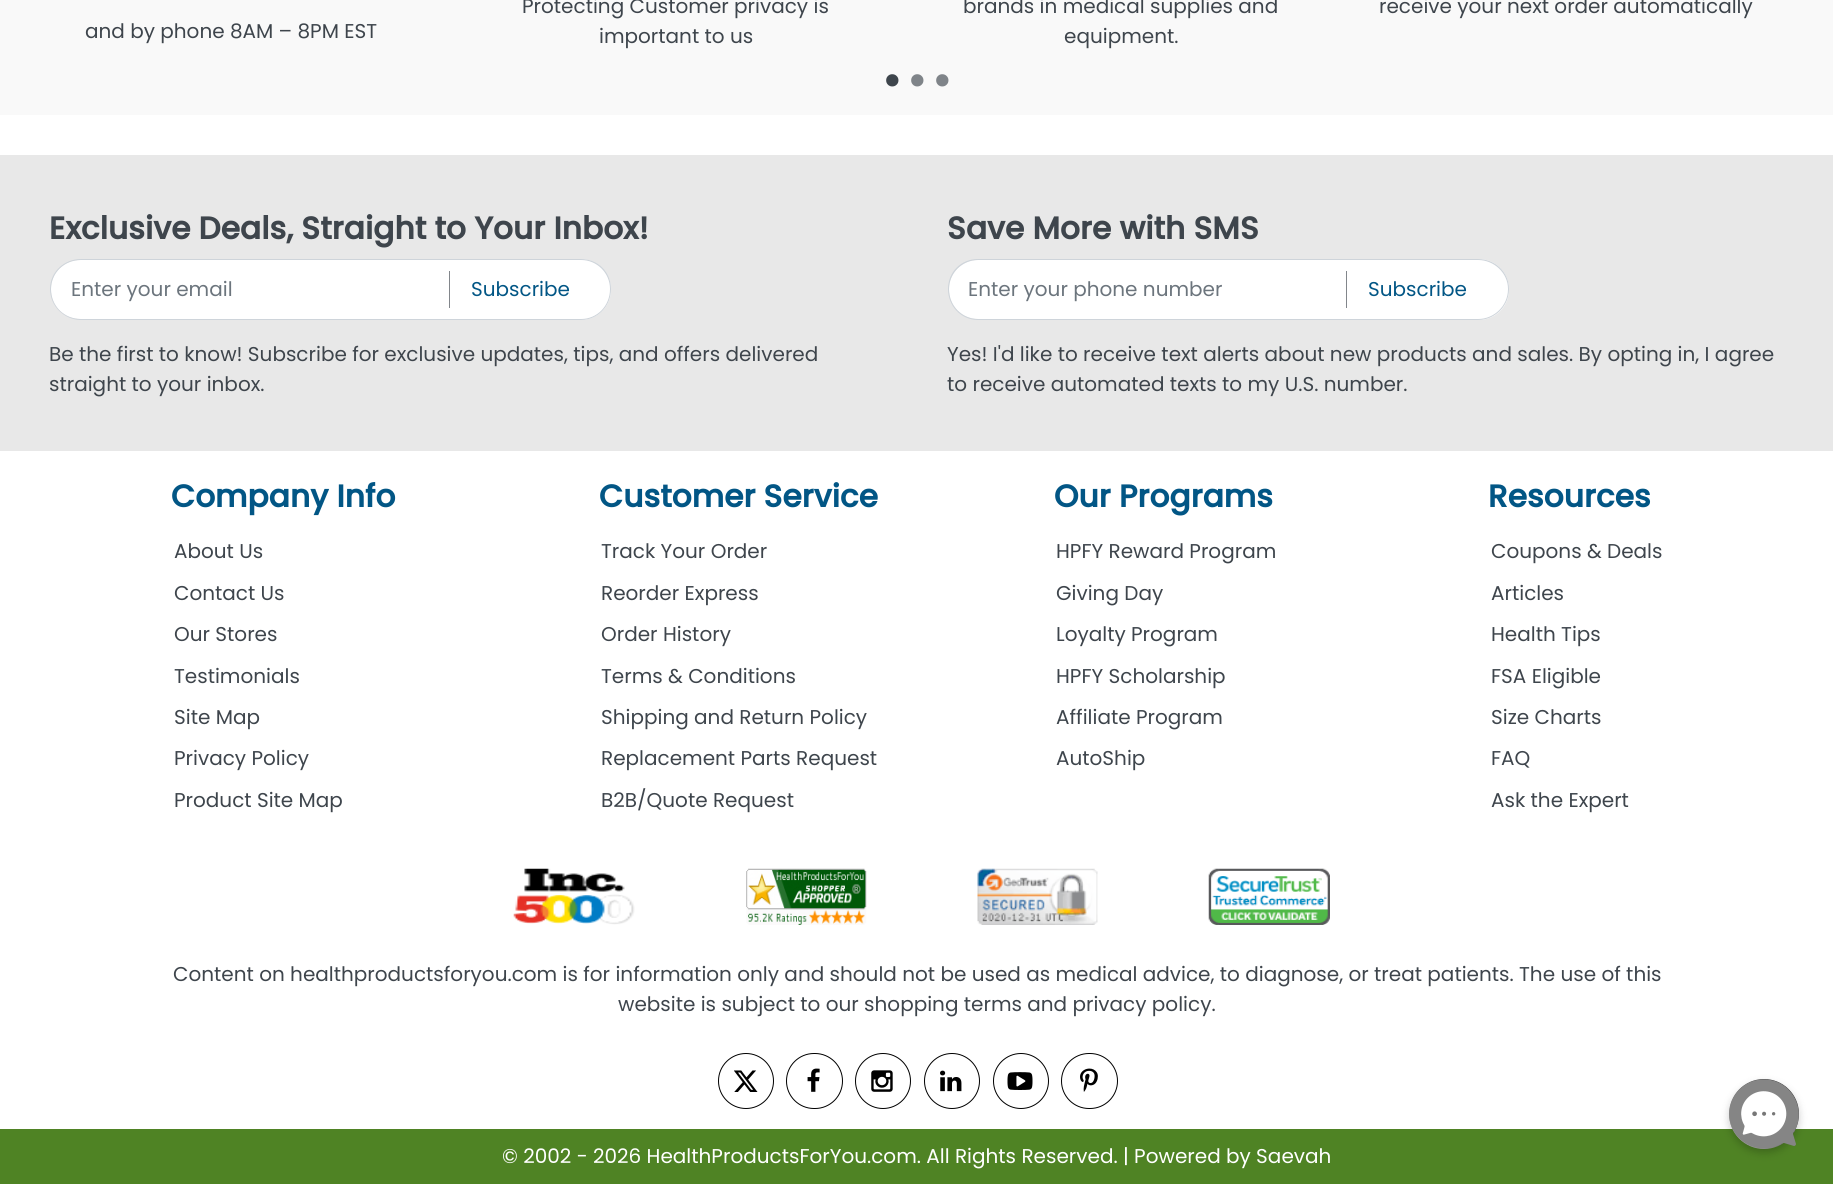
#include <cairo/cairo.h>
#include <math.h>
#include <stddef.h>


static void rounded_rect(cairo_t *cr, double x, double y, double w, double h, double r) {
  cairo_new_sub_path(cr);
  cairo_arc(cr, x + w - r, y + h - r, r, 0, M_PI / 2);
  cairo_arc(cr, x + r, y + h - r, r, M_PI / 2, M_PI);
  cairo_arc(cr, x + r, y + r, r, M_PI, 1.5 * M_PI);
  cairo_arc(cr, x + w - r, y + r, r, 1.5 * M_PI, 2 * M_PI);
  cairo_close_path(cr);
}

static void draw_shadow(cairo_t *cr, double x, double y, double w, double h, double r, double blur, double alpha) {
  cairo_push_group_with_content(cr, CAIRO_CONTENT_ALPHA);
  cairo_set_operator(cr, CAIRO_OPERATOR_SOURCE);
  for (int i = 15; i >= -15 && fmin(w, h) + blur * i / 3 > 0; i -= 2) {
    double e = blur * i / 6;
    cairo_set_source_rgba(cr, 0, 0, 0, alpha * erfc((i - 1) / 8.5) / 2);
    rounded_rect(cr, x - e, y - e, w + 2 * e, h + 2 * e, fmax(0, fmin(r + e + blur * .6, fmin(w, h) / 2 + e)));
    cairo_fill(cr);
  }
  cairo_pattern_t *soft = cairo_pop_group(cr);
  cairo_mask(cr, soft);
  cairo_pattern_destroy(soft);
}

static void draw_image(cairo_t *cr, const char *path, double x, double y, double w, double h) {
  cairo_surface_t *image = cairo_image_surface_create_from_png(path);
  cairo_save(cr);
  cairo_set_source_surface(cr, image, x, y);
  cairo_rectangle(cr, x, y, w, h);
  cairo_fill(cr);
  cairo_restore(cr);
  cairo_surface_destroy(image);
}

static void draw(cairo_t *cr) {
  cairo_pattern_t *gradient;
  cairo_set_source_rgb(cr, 1, 1, 1);
  cairo_paint(cr);
  cairo_set_source_rgb(cr, 249 / 255.0, 249 / 255.0, 249 / 255.0);
  cairo_rectangle(cr, 0, 0, 1833, 115);
  cairo_fill(cr);
  cairo_set_source_rgb(cr, 232 / 255.0, 232 / 255.0, 232 / 255.0);
  cairo_rectangle(cr, 0, 155, 1833, 296);
  cairo_fill(cr);
  cairo_set_source_rgb(cr, 1, 1, 1);
  cairo_new_path(cr);
  cairo_move_to(cr, 450, 259);
  cairo_line_to(cr, 580.5, 259);
  cairo_curve_to(cr, 597.5, 259, 611, 272.5, 611, 289.5);
  cairo_curve_to(cr, 611, 306.5, 597.5, 320, 580.5, 320);
  cairo_line_to(cr, 450, 320);
  cairo_close_path(cr);
  cairo_fill(cr);
  cairo_set_source_rgb(cr, 206 / 255.0, 212 / 255.0, 218 / 255.0);
  cairo_set_fill_rule(cr, CAIRO_FILL_RULE_EVEN_ODD);
  cairo_new_path(cr);
  cairo_move_to(cr, 450, 259);
  cairo_line_to(cr, 581, 259);
  cairo_curve_to(cr, 598, 259, 611, 272, 611, 289);
  cairo_curve_to(cr, 611, 306, 598, 320, 581, 320);
  cairo_line_to(cr, 450, 320);
  cairo_close_path(cr);
  cairo_move_to(cr, 450, 260);
  cairo_line_to(cr, 581, 260);
  cairo_curve_to(cr, 597, 260, 610, 273, 610, 289);
  cairo_curve_to(cr, 610, 306, 597, 319, 581, 319);
  cairo_line_to(cr, 450, 319);
  cairo_close_path(cr);
  cairo_fill(cr);
  cairo_set_source_rgb(cr, 1, 1, 1);
  cairo_new_path(cr);
  cairo_move_to(cr, 80.5, 260);
  cairo_line_to(cr, 453, 260);
  cairo_line_to(cr, 453, 319);
  cairo_line_to(cr, 80.5, 319);
  cairo_curve_to(cr, 64, 319, 51, 306, 51, 289.5);
  cairo_curve_to(cr, 51, 273, 64, 260, 80.5, 260);
  cairo_close_path(cr);
  cairo_fill(cr);
  cairo_set_source_rgb(cr, 206 / 255.0, 212 / 255.0, 218 / 255.0);
  cairo_new_path(cr);
  cairo_move_to(cr, 81, 259);
  cairo_line_to(cr, 452, 259);
  cairo_line_to(cr, 452, 320);
  cairo_line_to(cr, 81, 320);
  cairo_curve_to(cr, 64, 320, 50, 306, 50, 289);
  cairo_curve_to(cr, 50, 272, 64, 259, 81, 259);
  cairo_close_path(cr);
  cairo_move_to(cr, 81, 260);
  cairo_line_to(cr, 452, 260);
  cairo_line_to(cr, 452, 319);
  cairo_line_to(cr, 81, 319);
  cairo_curve_to(cr, 64, 319, 51, 306, 51, 289);
  cairo_curve_to(cr, 51, 273, 64, 260, 81, 260);
  cairo_close_path(cr);
  cairo_fill(cr);
  cairo_set_source_rgb(cr, 130 / 255.0, 134 / 255.0, 139 / 255.0);
  cairo_rectangle(cr, 449, 271, 1, 37);
  cairo_fill(cr);
  cairo_set_source_rgb(cr, 1, 1, 1);
  cairo_new_path(cr);
  cairo_move_to(cr, 1348, 259);
  cairo_line_to(cr, 1478.5, 259);
  cairo_curve_to(cr, 1495.5, 259, 1509, 272.5, 1509, 289.5);
  cairo_curve_to(cr, 1509, 306.5, 1495.5, 320, 1478.5, 320);
  cairo_line_to(cr, 1348, 320);
  cairo_close_path(cr);
  cairo_fill(cr);
  cairo_set_source_rgb(cr, 206 / 255.0, 212 / 255.0, 218 / 255.0);
  cairo_new_path(cr);
  cairo_move_to(cr, 1348, 259);
  cairo_line_to(cr, 1478, 259);
  cairo_curve_to(cr, 1495, 259, 1509, 272, 1509, 289);
  cairo_curve_to(cr, 1509, 306, 1495, 320, 1478, 320);
  cairo_line_to(cr, 1348, 320);
  cairo_close_path(cr);
  cairo_move_to(cr, 1348, 260);
  cairo_line_to(cr, 1478, 260);
  cairo_curve_to(cr, 1494, 260, 1508, 273, 1508, 289);
  cairo_curve_to(cr, 1508, 306, 1494, 319, 1478, 319);
  cairo_line_to(cr, 1348, 319);
  cairo_close_path(cr);
  cairo_fill(cr);
  cairo_set_source_rgb(cr, 1, 1, 1);
  cairo_new_path(cr);
  cairo_move_to(cr, 978.5, 260);
  cairo_line_to(cr, 1350, 260);
  cairo_line_to(cr, 1350, 319);
  cairo_line_to(cr, 978.5, 319);
  cairo_curve_to(cr, 962, 319, 949, 306, 949, 289.5);
  cairo_curve_to(cr, 949, 273, 962, 260, 978.5, 260);
  cairo_close_path(cr);
  cairo_fill(cr);
  cairo_set_source_rgb(cr, 206 / 255.0, 212 / 255.0, 218 / 255.0);
  cairo_new_path(cr);
  cairo_move_to(cr, 978, 259);
  cairo_line_to(cr, 1350, 259);
  cairo_line_to(cr, 1350, 320);
  cairo_line_to(cr, 978, 320);
  cairo_curve_to(cr, 961, 320, 948, 306, 948, 289);
  cairo_curve_to(cr, 948, 272, 961, 259, 978, 259);
  cairo_close_path(cr);
  cairo_move_to(cr, 978, 260);
  cairo_line_to(cr, 1350, 260);
  cairo_line_to(cr, 1350, 319);
  cairo_line_to(cr, 978, 319);
  cairo_curve_to(cr, 962, 319, 949, 306, 949, 289);
  cairo_curve_to(cr, 949, 273, 962, 260, 978, 260);
  cairo_close_path(cr);
  cairo_fill(cr);
  cairo_set_source_rgb(cr, 130 / 255.0, 134 / 255.0, 139 / 255.0);
  cairo_rectangle(cr, 1346, 271, 1, 37);
  cairo_fill(cr);
  draw_image(cr, "images/1.png", 513, 868, 122, 57);
  draw_image(cr, "images/2.png", 746, 868, 121, 57);
  draw_image(cr, "images/3.png", 977, 868, 121, 57);
  draw_image(cr, "images/4.png", 1208, 868, 122, 57);
  cairo_arc(cr, 746, 1081, 27.5, 0, 2 * M_PI);
  cairo_set_source_rgb(cr, 0, 0, 0);
  cairo_set_line_width(cr, 1);
  cairo_stroke(cr);
  draw_image(cr, "images/5.png", 734, 1070, 24, 22);
  rounded_rect(cr, 786.5, 1053.5, 56, 55, 27.5);
  cairo_stroke(cr);
  draw_image(cr, "images/6.png", 807, 1068, 13, 24);
  cairo_arc(cr, 883, 1081, 27.5, 0, 2 * M_PI);
  cairo_stroke(cr);
  draw_image(cr, "images/7.png", 871, 1070, 22, 22);
  cairo_arc(cr, 952, 1081, 27.5, 0, 2 * M_PI);
  cairo_stroke(cr);
  draw_image(cr, "images/8.png", 940, 1070, 22, 22);
  cairo_arc(cr, 1021, 1081, 27.5, 0, 2 * M_PI);
  cairo_stroke(cr);
  draw_image(cr, "images/9.png", 1007, 1072, 26, 18);
  rounded_rect(cr, 1061.5, 1053.5, 56, 55, 27.5);
  cairo_stroke(cr);
  draw_image(cr, "images/10.png", 1080, 1068, 18, 24);
  cairo_set_source_rgb(cr, 79 / 255.0, 131 / 255.0, 36 / 255.0);
  cairo_rectangle(cr, 0, 1129, 1833, 55);
  cairo_fill(cr);
  cairo_set_source_rgb(cr, 0, 0, 0);
  draw_shadow(cr, 1729, 1083, 70, 70, 35, 4, 0.2);
  gradient = cairo_pattern_create_linear(1729, 1149, 1799, 1079);
  cairo_pattern_add_color_stop_rgba(gradient, 0, 179 / 255.0, 179 / 255.0, 179 / 255.0, 1);
  cairo_pattern_add_color_stop_rgba(gradient, 1, 34 / 255.0, 34 / 255.0, 34 / 255.0, 1);
  cairo_set_source(cr, gradient);
  cairo_pattern_destroy(gradient);
  cairo_arc(cr, 1764, 1114, 35, 0, 2 * M_PI);
  cairo_fill(cr);
  cairo_set_source_rgb(cr, 133 / 255.0, 133 / 255.0, 133 / 255.0);
  cairo_set_fill_rule(cr, CAIRO_FILL_RULE_WINDING);
  cairo_new_path(cr);
  cairo_move_to(cr, 1788, 1089);
  cairo_curve_to(cr, 1775, 1076, 1752, 1076, 1739, 1090);
  cairo_curve_to(cr, 1726, 1104, 1726, 1125, 1739, 1138);
  cairo_curve_to(cr, 1751, 1150, 1768, 1151, 1781, 1144);
  cairo_curve_to(cr, 1782, 1143, 1783, 1143, 1784, 1143);
  cairo_line_to(cr, 1794, 1146);
  cairo_curve_to(cr, 1795, 1146, 1796, 1145, 1796, 1144);
  cairo_line_to(cr, 1793, 1134);
  cairo_curve_to(cr, 1793, 1133, 1793, 1132, 1794, 1132);
  cairo_curve_to(cr, 1802, 1118, 1800, 1101, 1788, 1089);
  cairo_close_path(cr);
  cairo_fill(cr);
  draw_image(cr, "images/11.png", 1741, 1091, 46, 46);
  draw_image(cr, "images/12.png", 1752, 1111, 24, 6);
  cairo_select_font_face(cr, "Poppins", CAIRO_FONT_SLANT_NORMAL, CAIRO_FONT_WEIGHT_NORMAL);
  cairo_set_font_size(cr, 20);
  cairo_set_source_rgb(cr, 62 / 255.0, 69 / 255.0, 76 / 255.0);
  cairo_move_to(cr, 522, 13);
  cairo_show_text(cr, "Protecting Customer privacy is");
  cairo_move_to(cr, 599, 43);
  cairo_show_text(cr, "important to us");
  cairo_move_to(cr, 963, 13);
  cairo_show_text(cr, "brands in medical supplies and");
  cairo_move_to(cr, 1064, 43);
  cairo_show_text(cr, "equipment.");
  cairo_move_to(cr, 1379, 13);
  cairo_show_text(cr, "receive your next order automatically");
  cairo_move_to(cr, 85, 38);
  cairo_show_text(cr, "and by phone 8AM – 8PM EST");
  cairo_set_font_size(cr, 50);
  cairo_move_to(cr, 882, 97);
  cairo_show_text(cr, "•");
  cairo_set_source_rgb(cr, 127 / 255.0, 132 / 255.0, 137 / 255.0);
  cairo_move_to(cr, 907, 97);
  cairo_show_text(cr, "•");
  cairo_move_to(cr, 932, 97);
  cairo_show_text(cr, "•");
  cairo_select_font_face(cr, "Poppins", CAIRO_FONT_SLANT_NORMAL, CAIRO_FONT_WEIGHT_BOLD);
  cairo_set_font_size(cr, 31.25);
  cairo_set_source_rgb(cr, 62 / 255.0, 69 / 255.0, 76 / 255.0);
  cairo_move_to(cr, 49, 239);
  cairo_show_text(cr, "Exclusive Deals, Straight to Your Inbox!");
  cairo_select_font_face(cr, "Poppins", CAIRO_FONT_SLANT_NORMAL, CAIRO_FONT_WEIGHT_NORMAL);
  cairo_set_font_size(cr, 20);
  cairo_set_source_rgb(cr, 108 / 255.0, 117 / 255.0, 125 / 255.0);
  cairo_move_to(cr, 71, 296);
  cairo_show_text(cr, "Enter your email");
  cairo_set_source_rgb(cr, 2 / 255.0, 86 / 255.0, 133 / 255.0);
  cairo_move_to(cr, 471, 296);
  cairo_show_text(cr, "Subscribe");
  cairo_set_source_rgb(cr, 62 / 255.0, 69 / 255.0, 76 / 255.0);
  cairo_move_to(cr, 49, 361);
  cairo_show_text(cr, "Be the first to know! Subscribe for exclusive updates, tips, and offers delivered");
  cairo_move_to(cr, 49, 391);
  cairo_show_text(cr, "straight to your inbox.");
  cairo_select_font_face(cr, "Poppins", CAIRO_FONT_SLANT_NORMAL, CAIRO_FONT_WEIGHT_BOLD);
  cairo_set_font_size(cr, 31.25);
  cairo_move_to(cr, 947, 239);
  cairo_show_text(cr, "Save More with SMS");
  cairo_select_font_face(cr, "Poppins", CAIRO_FONT_SLANT_NORMAL, CAIRO_FONT_WEIGHT_NORMAL);
  cairo_set_font_size(cr, 20);
  cairo_set_source_rgb(cr, 108 / 255.0, 117 / 255.0, 125 / 255.0);
  cairo_move_to(cr, 968, 296);
  cairo_show_text(cr, "Enter your phone number");
  cairo_set_source_rgb(cr, 2 / 255.0, 86 / 255.0, 133 / 255.0);
  cairo_move_to(cr, 1368, 296);
  cairo_show_text(cr, "Subscribe");
  cairo_set_source_rgb(cr, 62 / 255.0, 69 / 255.0, 76 / 255.0);
  cairo_move_to(cr, 947, 361);
  cairo_show_text(cr, "Yes! I'd like to receive text alerts about new products and sales. By opting in, I agree");
  cairo_move_to(cr, 947, 391);
  cairo_show_text(cr, "to receive automated texts to my U.S. number.");
  cairo_select_font_face(cr, "Poppins", CAIRO_FONT_SLANT_NORMAL, CAIRO_FONT_WEIGHT_BOLD);
  cairo_set_font_size(cr, 31.25);
  cairo_set_source_rgb(cr, 2 / 255.0, 86 / 255.0, 133 / 255.0);
  cairo_move_to(cr, 171, 507);
  cairo_show_text(cr, "Company Info");
  cairo_select_font_face(cr, "Poppins", CAIRO_FONT_SLANT_NORMAL, CAIRO_FONT_WEIGHT_NORMAL);
  cairo_set_font_size(cr, 20);
  cairo_set_source_rgb(cr, 62 / 255.0, 69 / 255.0, 76 / 255.0);
  cairo_move_to(cr, 174, 558);
  cairo_show_text(cr, "About Us");
  cairo_move_to(cr, 174, 600);
  cairo_show_text(cr, "Contact Us");
  cairo_move_to(cr, 174, 641);
  cairo_show_text(cr, "Our Stores");
  cairo_move_to(cr, 174, 683);
  cairo_show_text(cr, "Testimonials");
  cairo_move_to(cr, 174, 724);
  cairo_show_text(cr, "Site Map");
  cairo_move_to(cr, 174, 765);
  cairo_show_text(cr, "Privacy Policy");
  cairo_move_to(cr, 174, 807);
  cairo_show_text(cr, "Product Site Map");
  cairo_select_font_face(cr, "Poppins", CAIRO_FONT_SLANT_NORMAL, CAIRO_FONT_WEIGHT_BOLD);
  cairo_set_font_size(cr, 31.25);
  cairo_set_source_rgb(cr, 2 / 255.0, 86 / 255.0, 133 / 255.0);
  cairo_move_to(cr, 599, 507);
  cairo_show_text(cr, "Customer Service");
  cairo_select_font_face(cr, "Poppins", CAIRO_FONT_SLANT_NORMAL, CAIRO_FONT_WEIGHT_NORMAL);
  cairo_set_font_size(cr, 20);
  cairo_set_source_rgb(cr, 62 / 255.0, 69 / 255.0, 76 / 255.0);
  cairo_move_to(cr, 601, 558);
  cairo_show_text(cr, "Track Your Order");
  cairo_move_to(cr, 601, 600);
  cairo_show_text(cr, "Reorder Express");
  cairo_move_to(cr, 601, 641);
  cairo_show_text(cr, "Order History");
  cairo_move_to(cr, 601, 683);
  cairo_show_text(cr, "Terms & Conditions");
  cairo_move_to(cr, 601, 724);
  cairo_show_text(cr, "Shipping and Return Policy");
  cairo_move_to(cr, 601, 765);
  cairo_show_text(cr, "Replacement Parts Request");
  cairo_move_to(cr, 601, 807);
  cairo_show_text(cr, "B2B/Quote Request");
  cairo_select_font_face(cr, "Poppins", CAIRO_FONT_SLANT_NORMAL, CAIRO_FONT_WEIGHT_BOLD);
  cairo_set_font_size(cr, 31.25);
  cairo_set_source_rgb(cr, 2 / 255.0, 86 / 255.0, 133 / 255.0);
  cairo_move_to(cr, 1054, 507);
  cairo_show_text(cr, "Our Programs");
  cairo_select_font_face(cr, "Poppins", CAIRO_FONT_SLANT_NORMAL, CAIRO_FONT_WEIGHT_NORMAL);
  cairo_set_font_size(cr, 20);
  cairo_set_source_rgb(cr, 62 / 255.0, 69 / 255.0, 76 / 255.0);
  cairo_move_to(cr, 1056, 558);
  cairo_show_text(cr, "HPFY Reward Program");
  cairo_move_to(cr, 1056, 600);
  cairo_show_text(cr, "Giving Day");
  cairo_move_to(cr, 1056, 641);
  cairo_show_text(cr, "Loyalty Program");
  cairo_move_to(cr, 1056, 683);
  cairo_show_text(cr, "HPFY Scholarship");
  cairo_move_to(cr, 1056, 724);
  cairo_show_text(cr, "Affiliate Program");
  cairo_move_to(cr, 1056, 765);
  cairo_show_text(cr, "AutoShip");
  cairo_select_font_face(cr, "Poppins", CAIRO_FONT_SLANT_NORMAL, CAIRO_FONT_WEIGHT_BOLD);
  cairo_set_font_size(cr, 31.25);
  cairo_set_source_rgb(cr, 2 / 255.0, 86 / 255.0, 133 / 255.0);
  cairo_move_to(cr, 1488, 507);
  cairo_show_text(cr, "Resources");
  cairo_select_font_face(cr, "Poppins", CAIRO_FONT_SLANT_NORMAL, CAIRO_FONT_WEIGHT_NORMAL);
  cairo_set_font_size(cr, 20);
  cairo_set_source_rgb(cr, 62 / 255.0, 69 / 255.0, 76 / 255.0);
  cairo_move_to(cr, 1491, 558);
  cairo_show_text(cr, "Coupons & Deals");
  cairo_move_to(cr, 1491, 600);
  cairo_show_text(cr, "Articles");
  cairo_move_to(cr, 1491, 641);
  cairo_show_text(cr, "Health Tips");
  cairo_move_to(cr, 1491, 683);
  cairo_show_text(cr, "FSA Eligible");
  cairo_move_to(cr, 1491, 724);
  cairo_show_text(cr, "Size Charts");
  cairo_move_to(cr, 1491, 765);
  cairo_show_text(cr, "FAQ");
  cairo_move_to(cr, 1491, 807);
  cairo_show_text(cr, "Ask the Expert");
  cairo_move_to(cr, 173, 981);
  cairo_show_text(cr, "Content on healthproductsforyou.com is for information only and should not be used as medical advice, to diagnose, or treat patients. The use of this");
  cairo_move_to(cr, 618, 1011);
  cairo_show_text(cr, "website is subject to our shopping terms and privacy policy.");
  cairo_set_source_rgb(cr, 1, 1, 1);
  cairo_move_to(cr, 502, 1163);
  cairo_show_text(cr, "© 2002 - 2026 HealthProductsForYou.com. All Rights Reserved. | Powered by Saevah");
}

int main(void) {
  cairo_surface_t *surface = cairo_image_surface_create(CAIRO_FORMAT_RGB24, 1833, 1184);
  cairo_t *cr = cairo_create(surface);
  cairo_font_options_t *options = cairo_font_options_create();
  cairo_font_options_set_hint_metrics(options, CAIRO_HINT_METRICS_OFF);
  cairo_font_options_set_hint_style(options, CAIRO_HINT_STYLE_NONE);
  cairo_set_font_options(cr, options);
  cairo_set_miter_limit(cr, 4);
  draw(cr);
  cairo_surface_write_to_png(surface, "out.png");
  cairo_font_options_destroy(options);
  cairo_destroy(cr);
  cairo_surface_destroy(surface);
  return 0;
}
